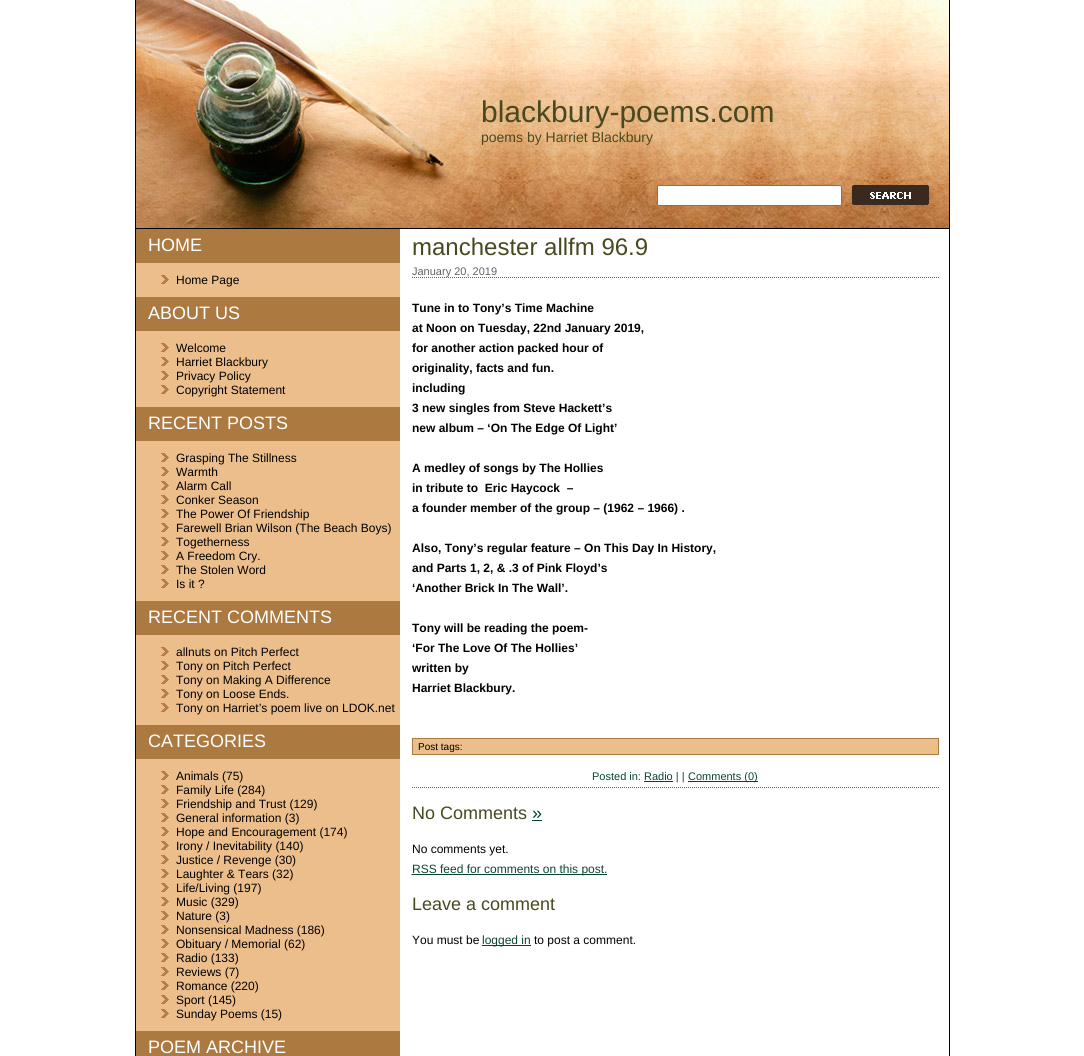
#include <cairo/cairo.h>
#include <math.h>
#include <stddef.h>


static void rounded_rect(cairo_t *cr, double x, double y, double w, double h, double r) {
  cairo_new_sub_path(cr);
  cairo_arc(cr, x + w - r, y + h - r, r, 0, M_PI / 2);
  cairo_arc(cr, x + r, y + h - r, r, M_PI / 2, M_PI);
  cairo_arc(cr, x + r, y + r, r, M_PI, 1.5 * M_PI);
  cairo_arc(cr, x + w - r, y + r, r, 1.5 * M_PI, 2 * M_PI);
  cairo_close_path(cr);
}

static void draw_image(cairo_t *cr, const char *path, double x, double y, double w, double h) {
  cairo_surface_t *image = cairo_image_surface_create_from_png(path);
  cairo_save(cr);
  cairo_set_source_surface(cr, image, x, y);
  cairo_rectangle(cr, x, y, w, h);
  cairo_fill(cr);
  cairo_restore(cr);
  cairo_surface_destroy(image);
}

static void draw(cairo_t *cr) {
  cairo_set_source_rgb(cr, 1, 1, 1);
  cairo_paint(cr);
  draw_image(cr, "images/1.png", 136, 0, 813, 228);
  cairo_set_source_rgb(cr, 0, 0, 0);
  cairo_rectangle(cr, 949, 0, 1, 1056);
  cairo_fill(cr);
  cairo_rectangle(cr, 135, 228, 815, 1);
  cairo_fill(cr);
  cairo_rectangle(cr, 135, 0, 1, 1056);
  cairo_fill(cr);
  cairo_set_source_rgb(cr, 1, 1, 1);
  rounded_rect(cr, 657.5, 185.5, 184, 20, 1.5);
  cairo_fill_preserve(cr);
  cairo_set_source_rgb(cr, 118 / 255.0, 118 / 255.0, 118 / 255.0);
  cairo_set_line_width(cr, 1);
  cairo_stroke(cr);
  draw_image(cr, "images/2.png", 852, 185, 77, 20);
  cairo_set_source_rgb(cr, 236 / 255.0, 190 / 255.0, 140 / 255.0);
  cairo_rectangle(cr, 136, 263, 264, 768);
  cairo_fill(cr);
  cairo_set_source_rgb(cr, 172 / 255.0, 121 / 255.0, 65 / 255.0);
  cairo_rectangle(cr, 136, 229, 264, 34);
  cairo_fill(cr);
  draw_image(cr, "images/3.png", 161, 275, 8, 9);
  cairo_rectangle(cr, 136, 297, 264, 34);
  cairo_fill(cr);
  draw_image(cr, "images/3.png", 161, 343, 8, 9);
  draw_image(cr, "images/3.png", 161, 357, 8, 9);
  draw_image(cr, "images/3.png", 161, 371, 8, 9);
  draw_image(cr, "images/3.png", 161, 385, 8, 9);
  cairo_rectangle(cr, 136, 407, 264, 34);
  cairo_fill(cr);
  draw_image(cr, "images/3.png", 161, 453, 8, 9);
  draw_image(cr, "images/3.png", 161, 467, 8, 9);
  draw_image(cr, "images/3.png", 161, 481, 8, 9);
  draw_image(cr, "images/3.png", 161, 495, 8, 9);
  draw_image(cr, "images/3.png", 161, 509, 8, 9);
  draw_image(cr, "images/3.png", 161, 523, 8, 9);
  draw_image(cr, "images/3.png", 161, 537, 8, 9);
  draw_image(cr, "images/3.png", 161, 551, 8, 9);
  draw_image(cr, "images/3.png", 161, 565, 8, 9);
  draw_image(cr, "images/3.png", 161, 579, 8, 9);
  cairo_rectangle(cr, 136, 601, 264, 34);
  cairo_fill(cr);
  draw_image(cr, "images/3.png", 161, 647, 8, 9);
  draw_image(cr, "images/3.png", 161, 661, 8, 9);
  draw_image(cr, "images/3.png", 161, 675, 8, 9);
  draw_image(cr, "images/3.png", 161, 689, 8, 9);
  draw_image(cr, "images/3.png", 161, 703, 8, 9);
  cairo_rectangle(cr, 136, 725, 264, 34);
  cairo_fill(cr);
  draw_image(cr, "images/3.png", 161, 771, 8, 9);
  draw_image(cr, "images/3.png", 161, 785, 8, 9);
  draw_image(cr, "images/3.png", 161, 799, 8, 9);
  draw_image(cr, "images/3.png", 161, 813, 8, 9);
  draw_image(cr, "images/3.png", 161, 827, 8, 9);
  draw_image(cr, "images/3.png", 161, 841, 8, 9);
  draw_image(cr, "images/3.png", 161, 855, 8, 9);
  draw_image(cr, "images/3.png", 161, 869, 8, 9);
  draw_image(cr, "images/3.png", 161, 883, 8, 9);
  draw_image(cr, "images/3.png", 161, 897, 8, 9);
  draw_image(cr, "images/3.png", 161, 911, 8, 9);
  draw_image(cr, "images/3.png", 161, 925, 8, 9);
  draw_image(cr, "images/3.png", 161, 939, 8, 9);
  draw_image(cr, "images/3.png", 161, 953, 8, 9);
  draw_image(cr, "images/3.png", 161, 967, 8, 9);
  draw_image(cr, "images/3.png", 161, 981, 8, 9);
  draw_image(cr, "images/3.png", 161, 995, 8, 9);
  draw_image(cr, "images/3.png", 161, 1009, 8, 9);
  cairo_rectangle(cr, 136, 1031, 264, 25);
  cairo_fill(cr);
  cairo_new_path(cr);
  cairo_move_to(cr, 412, 277.5);
  cairo_line_to(cr, 939, 277.5);
  cairo_set_source_rgb(cr, 98 / 255.0, 98 / 255.0, 98 / 255.0);
  cairo_set_dash(cr, (double[]){1, 1}, 2, 0);
  cairo_stroke(cr);
  cairo_set_source_rgb(cr, 236 / 255.0, 190 / 255.0, 140 / 255.0);
  cairo_rectangle(cr, 412.5, 738.5, 526, 16);
  cairo_fill_preserve(cr);
  cairo_set_source_rgb(cr, 172 / 255.0, 121 / 255.0, 65 / 255.0);
  cairo_set_dash(cr, NULL, 0, 0);
  cairo_stroke(cr);
  cairo_new_path(cr);
  cairo_move_to(cr, 412, 787.5);
  cairo_line_to(cr, 939, 787.5);
  cairo_set_source_rgb(cr, 98 / 255.0, 98 / 255.0, 98 / 255.0);
  cairo_set_dash(cr, (double[]){1, 1}, 2, 0);
  cairo_stroke(cr);
  cairo_set_source_rgb(cr, 8 / 255.0, 69 / 255.0, 49 / 255.0);
  cairo_rectangle(cr, 688, 781, 70, 1);
  cairo_fill(cr);
  cairo_rectangle(cr, 644, 781, 29, 1);
  cairo_fill(cr);
  cairo_rectangle(cr, 532, 820, 10, 1);
  cairo_fill(cr);
  cairo_new_path(cr);
  cairo_move_to(cr, 411.5, 874.5);
  cairo_line_to(cr, 436, 874.5);
  cairo_stroke(cr);
  cairo_rectangle(cr, 412, 874, 195, 1);
  cairo_fill(cr);
  cairo_rectangle(cr, 482, 945, 49, 1);
  cairo_fill(cr);
  cairo_select_font_face(cr, "Liberation Sans", CAIRO_FONT_SLANT_NORMAL, CAIRO_FONT_WEIGHT_NORMAL);
  cairo_set_font_size(cr, 30);
  cairo_set_source_rgb(cr, 73 / 255.0, 73 / 255.0, 33 / 255.0);
  cairo_move_to(cr, 481, 122);
  cairo_show_text(cr, "blackbury-poems.com");
  cairo_set_font_size(cr, 14);
  cairo_move_to(cr, 481, 142);
  cairo_show_text(cr, "poems by Harriet Blackbury");
  cairo_set_font_size(cr, 18);
  cairo_set_source_rgb(cr, 1, 1, 1);
  cairo_move_to(cr, 148, 251);
  cairo_show_text(cr, "HOME");
  cairo_set_font_size(cr, 12);
  cairo_set_source_rgb(cr, 0, 0, 0);
  cairo_move_to(cr, 176, 284);
  cairo_show_text(cr, "Home Page");
  cairo_set_font_size(cr, 18);
  cairo_set_source_rgb(cr, 1, 1, 1);
  cairo_move_to(cr, 148, 319);
  cairo_show_text(cr, "ABOUT US");
  cairo_set_font_size(cr, 12);
  cairo_set_source_rgb(cr, 0, 0, 0);
  cairo_move_to(cr, 176, 352);
  cairo_show_text(cr, "Welcome");
  cairo_move_to(cr, 176, 366);
  cairo_show_text(cr, "Harriet Blackbury");
  cairo_move_to(cr, 176, 380);
  cairo_show_text(cr, "Privacy Policy");
  cairo_move_to(cr, 176, 394);
  cairo_show_text(cr, "Copyright Statement");
  cairo_set_font_size(cr, 18);
  cairo_set_source_rgb(cr, 1, 1, 1);
  cairo_move_to(cr, 148, 429);
  cairo_show_text(cr, "RECENT POSTS");
  cairo_set_font_size(cr, 12);
  cairo_set_source_rgb(cr, 0, 0, 0);
  cairo_move_to(cr, 176, 462);
  cairo_show_text(cr, "Grasping The Stillness");
  cairo_move_to(cr, 176, 476);
  cairo_show_text(cr, "Warmth");
  cairo_move_to(cr, 176, 490);
  cairo_show_text(cr, "Alarm Call");
  cairo_move_to(cr, 176, 504);
  cairo_show_text(cr, "Conker Season");
  cairo_move_to(cr, 176, 518);
  cairo_show_text(cr, "The Power Of Friendship");
  cairo_move_to(cr, 176, 532);
  cairo_show_text(cr, "Farewell Brian Wilson (The Beach Boys)");
  cairo_move_to(cr, 176, 546);
  cairo_show_text(cr, "Togetherness");
  cairo_move_to(cr, 176, 560);
  cairo_show_text(cr, "A Freedom Cry.");
  cairo_move_to(cr, 176, 574);
  cairo_show_text(cr, "The Stolen Word");
  cairo_move_to(cr, 176, 588);
  cairo_show_text(cr, "Is it ?");
  cairo_set_font_size(cr, 18);
  cairo_set_source_rgb(cr, 1, 1, 1);
  cairo_move_to(cr, 148, 623);
  cairo_show_text(cr, "RECENT COMMENTS");
  cairo_set_font_size(cr, 12);
  cairo_set_source_rgb(cr, 0, 0, 0);
  cairo_move_to(cr, 176, 656);
  cairo_show_text(cr, "allnuts on Pitch Perfect");
  cairo_move_to(cr, 176, 670);
  cairo_show_text(cr, "Tony on Pitch Perfect");
  cairo_move_to(cr, 176, 684);
  cairo_show_text(cr, "Tony on Making A Difference");
  cairo_move_to(cr, 176, 698);
  cairo_show_text(cr, "Tony on Loose Ends.");
  cairo_move_to(cr, 176, 712);
  cairo_show_text(cr, "Tony on Harriet’s poem live on LDOK.net");
  cairo_set_font_size(cr, 18);
  cairo_set_source_rgb(cr, 1, 1, 1);
  cairo_move_to(cr, 148, 747);
  cairo_show_text(cr, "CATEGORIES");
  cairo_set_font_size(cr, 12);
  cairo_set_source_rgb(cr, 0, 0, 0);
  cairo_move_to(cr, 176, 780);
  cairo_show_text(cr, "Animals (75)");
  cairo_move_to(cr, 176, 794);
  cairo_show_text(cr, "Family Life (284)");
  cairo_move_to(cr, 176, 808);
  cairo_show_text(cr, "Friendship and Trust (129)");
  cairo_move_to(cr, 176, 822);
  cairo_show_text(cr, "General information (3)");
  cairo_move_to(cr, 176, 836);
  cairo_show_text(cr, "Hope and Encouragement (174)");
  cairo_move_to(cr, 176, 850);
  cairo_show_text(cr, "Irony / Inevitability (140)");
  cairo_move_to(cr, 176, 864);
  cairo_show_text(cr, "Justice / Revenge (30)");
  cairo_move_to(cr, 176, 878);
  cairo_show_text(cr, "Laughter & Tears (32)");
  cairo_move_to(cr, 176, 892);
  cairo_show_text(cr, "Life/Living (197)");
  cairo_move_to(cr, 176, 906);
  cairo_show_text(cr, "Music (329)");
  cairo_move_to(cr, 176, 920);
  cairo_show_text(cr, "Nature (3)");
  cairo_move_to(cr, 176, 934);
  cairo_show_text(cr, "Nonsensical Madness (186)");
  cairo_move_to(cr, 176, 948);
  cairo_show_text(cr, "Obituary / Memorial (62)");
  cairo_move_to(cr, 176, 962);
  cairo_show_text(cr, "Radio (133)");
  cairo_move_to(cr, 176, 976);
  cairo_show_text(cr, "Reviews (7)");
  cairo_move_to(cr, 176, 990);
  cairo_show_text(cr, "Romance (220)");
  cairo_move_to(cr, 176, 1004);
  cairo_show_text(cr, "Sport (145)");
  cairo_move_to(cr, 176, 1018);
  cairo_show_text(cr, "Sunday Poems (15)");
  cairo_set_font_size(cr, 18);
  cairo_set_source_rgb(cr, 1, 1, 1);
  cairo_move_to(cr, 148, 1053);
  cairo_show_text(cr, "POEM ARCHIVE");
  cairo_set_font_size(cr, 24);
  cairo_set_source_rgb(cr, 73 / 255.0, 73 / 255.0, 33 / 255.0);
  cairo_move_to(cr, 412, 255);
  cairo_show_text(cr, "manchester allfm 96.9");
  cairo_set_font_size(cr, 11);
  cairo_set_source_rgb(cr, 98 / 255.0, 98 / 255.0, 98 / 255.0);
  cairo_move_to(cr, 412, 275);
  cairo_show_text(cr, "January 20, 2019");
  cairo_select_font_face(cr, "Liberation Sans", CAIRO_FONT_SLANT_NORMAL, CAIRO_FONT_WEIGHT_BOLD);
  cairo_set_font_size(cr, 12);
  cairo_set_source_rgb(cr, 0, 0, 0);
  cairo_move_to(cr, 412, 312);
  cairo_show_text(cr, "Tune in to Tony’s Time Machine");
  cairo_move_to(cr, 412, 332);
  cairo_show_text(cr, "at Noon on Tuesday, 22nd January 2019,");
  cairo_move_to(cr, 412, 352);
  cairo_show_text(cr, "for another action packed hour of");
  cairo_move_to(cr, 412, 372);
  cairo_show_text(cr, "originality, facts and fun.");
  cairo_move_to(cr, 412, 392);
  cairo_show_text(cr, "including");
  cairo_move_to(cr, 412, 412);
  cairo_show_text(cr, "3 new singles from Steve Hackett’s");
  cairo_move_to(cr, 412, 432);
  cairo_show_text(cr, "new album – ‘On The Edge Of Light’");
  cairo_move_to(cr, 412, 472);
  cairo_show_text(cr, "A medley of songs by The Hollies");
  cairo_move_to(cr, 412, 492);
  cairo_show_text(cr, "in tribute to  Eric Haycock  –");
  cairo_move_to(cr, 412, 512);
  cairo_show_text(cr, "a founder member of the group – (1962 – 1966) .");
  cairo_move_to(cr, 412, 552);
  cairo_show_text(cr, "Also, Tony’s regular feature – On This Day In History,");
  cairo_move_to(cr, 412, 572);
  cairo_show_text(cr, "and Parts 1, 2, & .3 of Pink Floyd’s");
  cairo_move_to(cr, 412, 592);
  cairo_show_text(cr, "‘Another Brick In The Wall’.");
  cairo_move_to(cr, 412, 632);
  cairo_show_text(cr, "Tony will be reading the poem-");
  cairo_move_to(cr, 412, 652);
  cairo_show_text(cr, "‘For The Love Of The Hollies’");
  cairo_move_to(cr, 412, 672);
  cairo_show_text(cr, "written by");
  cairo_move_to(cr, 412, 692);
  cairo_show_text(cr, "Harriet Blackbury.");
  cairo_select_font_face(cr, "Liberation Sans", CAIRO_FONT_SLANT_NORMAL, CAIRO_FONT_WEIGHT_NORMAL);
  cairo_set_font_size(cr, 10);
  cairo_move_to(cr, 418, 750);
  cairo_show_text(cr, "Post tags:");
  cairo_set_font_size(cr, 11);
  cairo_set_source_rgb(cr, 8 / 255.0, 69 / 255.0, 49 / 255.0);
  cairo_move_to(cr, 592, 780);
  cairo_show_text(cr, "Posted in: Radio | |");
  cairo_move_to(cr, 688, 780);
  cairo_show_text(cr, "Comments (0)");
  cairo_set_font_size(cr, 18);
  cairo_set_source_rgb(cr, 73 / 255.0, 73 / 255.0, 33 / 255.0);
  cairo_move_to(cr, 412, 819);
  cairo_show_text(cr, "No Comments");
  cairo_set_source_rgb(cr, 8 / 255.0, 69 / 255.0, 49 / 255.0);
  cairo_move_to(cr, 532, 819);
  cairo_show_text(cr, "»");
  cairo_set_font_size(cr, 12);
  cairo_set_source_rgb(cr, 0, 0, 0);
  cairo_move_to(cr, 412, 853);
  cairo_show_text(cr, "No comments yet.");
  cairo_set_source_rgb(cr, 8 / 255.0, 69 / 255.0, 49 / 255.0);
  cairo_move_to(cr, 412, 873);
  cairo_show_text(cr, "RSS feed for comments on this post.");
  cairo_set_font_size(cr, 18);
  cairo_set_source_rgb(cr, 73 / 255.0, 73 / 255.0, 33 / 255.0);
  cairo_move_to(cr, 412, 910);
  cairo_show_text(cr, "Leave a comment");
  cairo_set_font_size(cr, 12);
  cairo_set_source_rgb(cr, 0, 0, 0);
  cairo_move_to(cr, 412, 944);
  cairo_show_text(cr, "You must be");
  cairo_set_source_rgb(cr, 8 / 255.0, 69 / 255.0, 49 / 255.0);
  cairo_move_to(cr, 482, 944);
  cairo_show_text(cr, "logged in");
  cairo_set_source_rgb(cr, 0, 0, 0);
  cairo_move_to(cr, 534, 944);
  cairo_show_text(cr, "to post a comment.");
}

int main(void) {
  cairo_surface_t *surface = cairo_image_surface_create(CAIRO_FORMAT_RGB24, 1084, 1056);
  cairo_t *cr = cairo_create(surface);
  cairo_font_options_t *options = cairo_font_options_create();
  cairo_font_options_set_hint_metrics(options, CAIRO_HINT_METRICS_OFF);
  cairo_font_options_set_hint_style(options, CAIRO_HINT_STYLE_NONE);
  cairo_set_font_options(cr, options);
  cairo_set_miter_limit(cr, 4);
  draw(cr);
  cairo_surface_write_to_png(surface, "out.png");
  cairo_font_options_destroy(options);
  cairo_destroy(cr);
  cairo_surface_destroy(surface);
  return 0;
}
